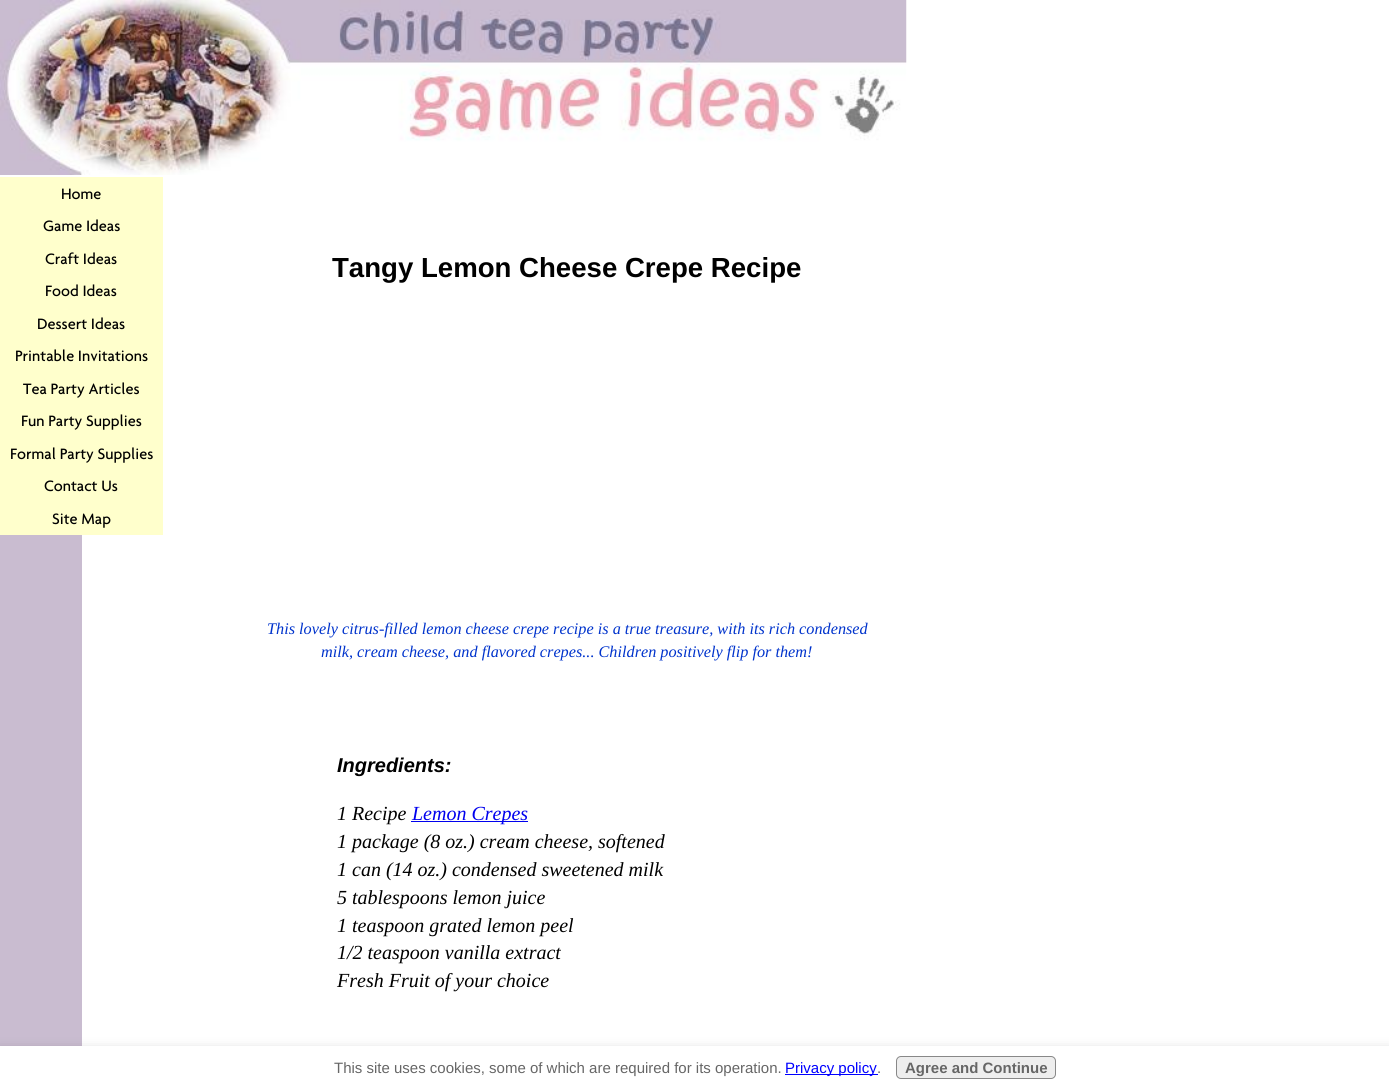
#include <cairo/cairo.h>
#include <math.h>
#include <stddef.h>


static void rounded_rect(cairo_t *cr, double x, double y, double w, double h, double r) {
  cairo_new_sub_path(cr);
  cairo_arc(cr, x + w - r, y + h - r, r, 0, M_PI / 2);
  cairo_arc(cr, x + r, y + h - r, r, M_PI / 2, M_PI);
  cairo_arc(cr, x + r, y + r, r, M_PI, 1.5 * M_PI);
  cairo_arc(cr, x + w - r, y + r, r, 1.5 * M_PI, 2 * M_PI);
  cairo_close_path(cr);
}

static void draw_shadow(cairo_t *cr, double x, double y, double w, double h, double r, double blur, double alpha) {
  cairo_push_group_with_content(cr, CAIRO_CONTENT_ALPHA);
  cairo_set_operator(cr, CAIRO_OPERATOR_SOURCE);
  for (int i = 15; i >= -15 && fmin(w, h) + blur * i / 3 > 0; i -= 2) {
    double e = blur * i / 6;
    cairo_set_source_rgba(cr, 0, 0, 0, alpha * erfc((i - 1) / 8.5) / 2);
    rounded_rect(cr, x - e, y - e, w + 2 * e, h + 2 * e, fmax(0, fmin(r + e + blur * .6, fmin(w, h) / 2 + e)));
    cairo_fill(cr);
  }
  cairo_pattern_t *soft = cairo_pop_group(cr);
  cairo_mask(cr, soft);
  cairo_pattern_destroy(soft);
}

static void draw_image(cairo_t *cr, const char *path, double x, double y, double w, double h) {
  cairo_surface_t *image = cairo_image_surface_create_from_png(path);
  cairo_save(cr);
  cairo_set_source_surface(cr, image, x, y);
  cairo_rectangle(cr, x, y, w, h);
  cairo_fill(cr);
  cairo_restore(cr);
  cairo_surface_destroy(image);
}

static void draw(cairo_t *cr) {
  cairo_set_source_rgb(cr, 1, 1, 1);
  cairo_paint(cr);
  draw_image(cr, "images/1.png", 0, 0, 907, 175);
  cairo_set_source_rgb(cr, 201 / 255.0, 188 / 255.0, 208 / 255.0);
  cairo_rectangle(cr, 0, 535, 82, 511);
  cairo_fill(cr);
  cairo_set_source_rgb(cr, 1, 1, 204 / 255.0);
  cairo_rectangle(cr, 0, 177, 163, 358);
  cairo_fill(cr);
  cairo_set_source_rgb(cr, 0, 0, 238 / 255.0);
  cairo_rectangle(cr, 411, 821, 117, 1);
  cairo_fill(cr);
  cairo_set_source_rgb(cr, 0, 0, 0);
  draw_shadow(cr, -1, 1050, 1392, 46, 0, 6, 0.2);
  cairo_set_source_rgb(cr, 1, 1, 1);
  cairo_rectangle(cr, 0, 1046, 1389, 44);
  cairo_fill(cr);
  cairo_set_source_rgb(cr, 0, 0, 1);
  cairo_rectangle(cr, 785, 1074, 93, 1);
  cairo_fill(cr);
  cairo_set_source_rgb(cr, 238 / 255.0, 238 / 255.0, 238 / 255.0);
  rounded_rect(cr, 896.5, 1056.5, 159, 22, 4.5);
  cairo_fill_preserve(cr);
  cairo_set_source_rgb(cr, 136 / 255.0, 136 / 255.0, 136 / 255.0);
  cairo_set_line_width(cr, 1);
  cairo_stroke(cr);
  cairo_select_font_face(cr, "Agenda", CAIRO_FONT_SLANT_NORMAL, CAIRO_FONT_WEIGHT_NORMAL);
  cairo_set_font_size(cr, 16.25);
  cairo_set_source_rgb(cr, 0, 0, 0);
  cairo_move_to(cr, 61, 199);
  cairo_show_text(cr, "Home");
  cairo_move_to(cr, 43, 231);
  cairo_show_text(cr, "Game Ideas");
  cairo_move_to(cr, 45, 264);
  cairo_show_text(cr, "Craft Ideas");
  cairo_move_to(cr, 45, 296);
  cairo_show_text(cr, "Food Ideas");
  cairo_move_to(cr, 37, 329);
  cairo_show_text(cr, "Dessert Ideas");
  cairo_move_to(cr, 15, 361);
  cairo_show_text(cr, "Printable Invitations");
  cairo_move_to(cr, 23, 394);
  cairo_show_text(cr, "Tea Party Articles");
  cairo_move_to(cr, 21, 426);
  cairo_show_text(cr, "Fun Party Supplies");
  cairo_move_to(cr, 10, 459);
  cairo_show_text(cr, "Formal Party Supplies");
  cairo_move_to(cr, 44, 491);
  cairo_show_text(cr, "Contact Us");
  cairo_move_to(cr, 52, 524);
  cairo_show_text(cr, "Site Map");
  cairo_select_font_face(cr, "Liberation Sans", CAIRO_FONT_SLANT_NORMAL, CAIRO_FONT_WEIGHT_BOLD);
  cairo_set_font_size(cr, 27.6);
  cairo_move_to(cr, 332, 277);
  cairo_show_text(cr, "Tangy Lemon Cheese Crepe Recipe");
  cairo_select_font_face(cr, "Liberation Serif", CAIRO_FONT_SLANT_ITALIC, CAIRO_FONT_WEIGHT_NORMAL);
  cairo_set_font_size(cr, 16.25);
  cairo_set_source_rgb(cr, 0, 51 / 255.0, 204 / 255.0);
  cairo_move_to(cr, 267, 634);
  cairo_show_text(cr, "This lovely citrus-filled lemon cheese crepe recipe is a true treasure, with its rich condensed");
  cairo_move_to(cr, 321, 657);
  cairo_show_text(cr, "milk, cream cheese, and flavored crepes... Children positively flip for them!");
  cairo_select_font_face(cr, "Liberation Sans", CAIRO_FONT_SLANT_ITALIC, CAIRO_FONT_WEIGHT_BOLD);
  cairo_set_font_size(cr, 20);
  cairo_set_source_rgb(cr, 0, 0, 0);
  cairo_move_to(cr, 337, 772);
  cairo_show_text(cr, "Ingredients:");
  cairo_select_font_face(cr, "Liberation Serif", CAIRO_FONT_SLANT_ITALIC, CAIRO_FONT_WEIGHT_NORMAL);
  cairo_move_to(cr, 337, 820);
  cairo_show_text(cr, "1 Recipe");
  cairo_set_source_rgb(cr, 0, 0, 238 / 255.0);
  cairo_move_to(cr, 412, 820);
  cairo_show_text(cr, "Lemon Crepes");
  cairo_set_source_rgb(cr, 0, 0, 0);
  cairo_move_to(cr, 337, 848);
  cairo_show_text(cr, "1 package (8 oz.) cream cheese, softened");
  cairo_move_to(cr, 337, 876);
  cairo_show_text(cr, "1 can (14 oz.) condensed sweetened milk");
  cairo_move_to(cr, 337, 904);
  cairo_show_text(cr, "5 tablespoons lemon juice");
  cairo_move_to(cr, 337, 932);
  cairo_show_text(cr, "1 teaspoon grated lemon peel");
  cairo_move_to(cr, 337, 959);
  cairo_show_text(cr, "1/2 teaspoon vanilla extract");
  cairo_move_to(cr, 337, 987);
  cairo_show_text(cr, "Fresh Fruit of your choice");
  cairo_select_font_face(cr, "Liberation Sans", CAIRO_FONT_SLANT_NORMAL, CAIRO_FONT_WEIGHT_NORMAL);
  cairo_set_font_size(cr, 15);
  cairo_set_source_rgb(cr, 102 / 255.0, 102 / 255.0, 102 / 255.0);
  cairo_move_to(cr, 334, 1073);
  cairo_show_text(cr, "This site uses cookies, some of which are required for its operation.");
  cairo_set_source_rgb(cr, 0, 0, 1);
  cairo_move_to(cr, 785, 1073);
  cairo_show_text(cr, "Privacy policy");
  cairo_set_source_rgb(cr, 102 / 255.0, 102 / 255.0, 102 / 255.0);
  cairo_move_to(cr, 877, 1073);
  cairo_show_text(cr, ".");
  cairo_select_font_face(cr, "Liberation Sans", CAIRO_FONT_SLANT_NORMAL, CAIRO_FONT_WEIGHT_BOLD);
  cairo_move_to(cr, 905, 1073);
  cairo_show_text(cr, "Agree and Continue");
}

int main(void) {
  cairo_surface_t *surface = cairo_image_surface_create(CAIRO_FORMAT_RGB24, 1389, 1090);
  cairo_t *cr = cairo_create(surface);
  cairo_font_options_t *options = cairo_font_options_create();
  cairo_font_options_set_hint_metrics(options, CAIRO_HINT_METRICS_OFF);
  cairo_font_options_set_hint_style(options, CAIRO_HINT_STYLE_NONE);
  cairo_set_font_options(cr, options);
  cairo_set_miter_limit(cr, 4);
  draw(cr);
  cairo_surface_write_to_png(surface, "out.png");
  cairo_font_options_destroy(options);
  cairo_destroy(cr);
  cairo_surface_destroy(surface);
  return 0;
}
